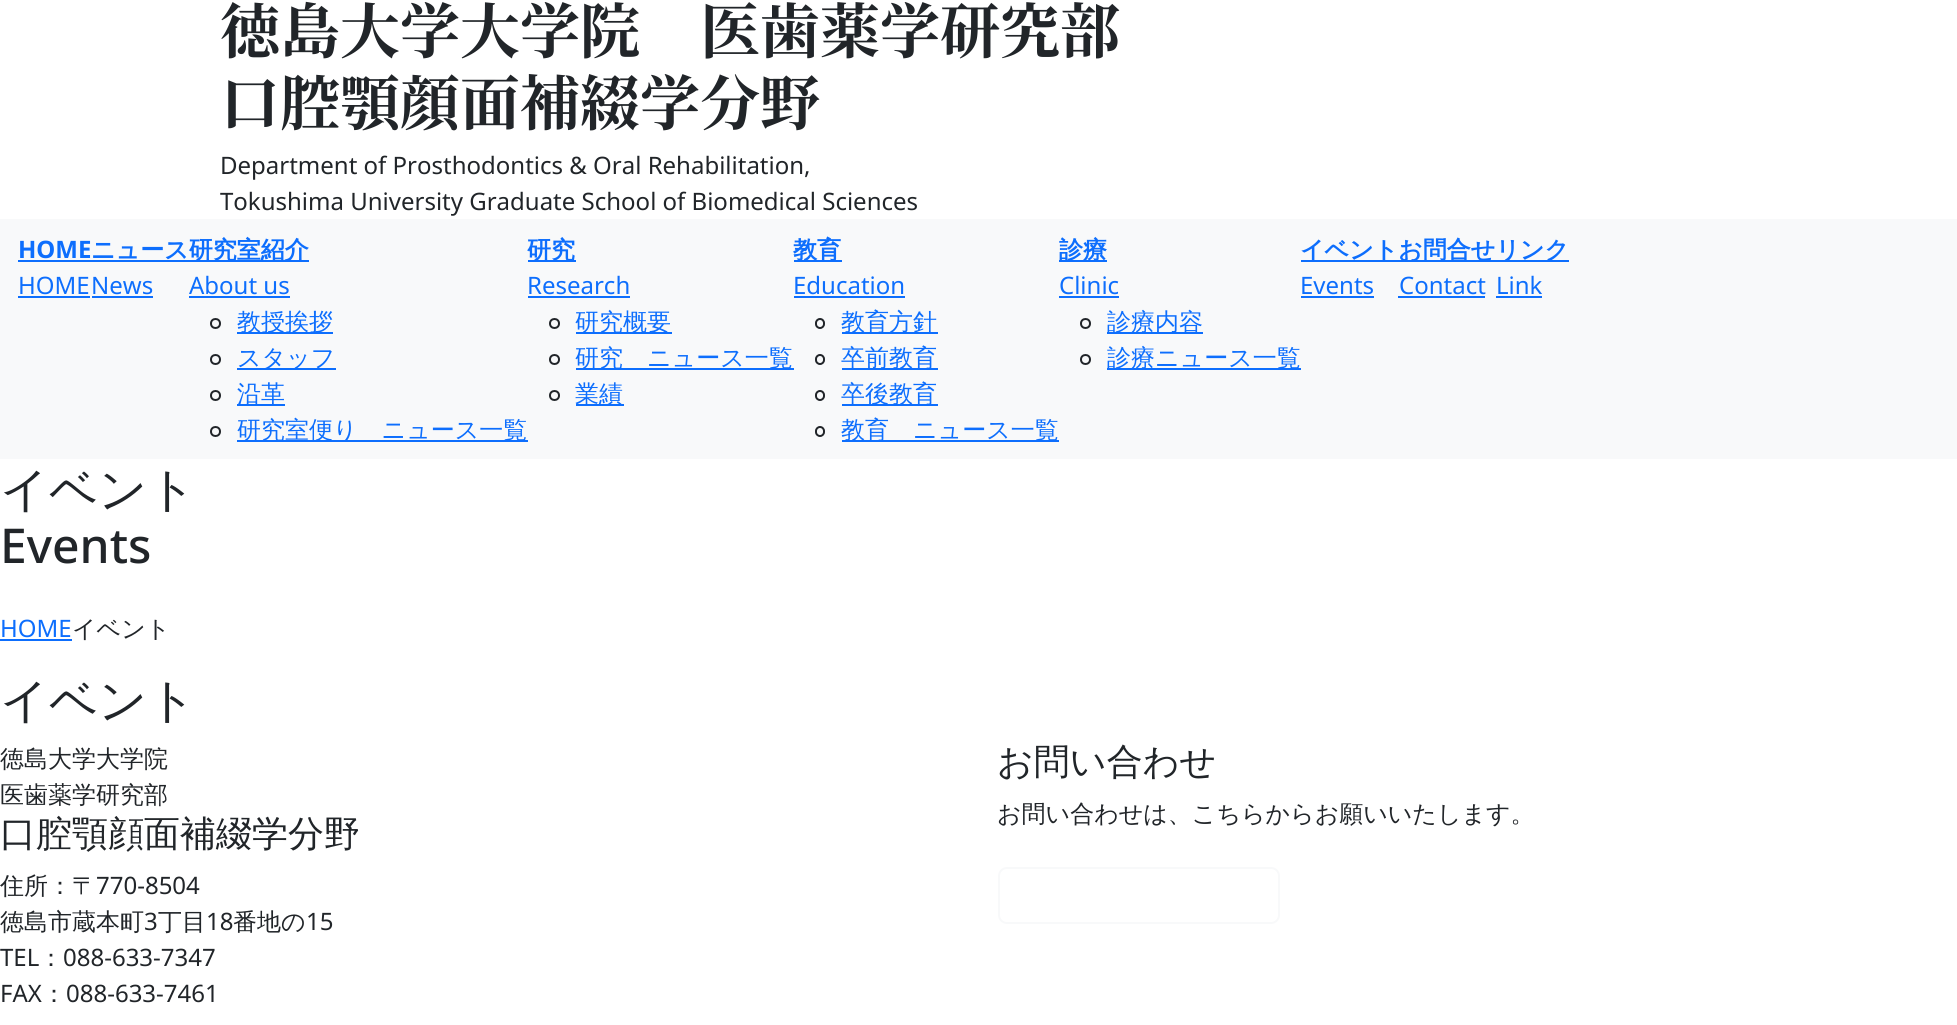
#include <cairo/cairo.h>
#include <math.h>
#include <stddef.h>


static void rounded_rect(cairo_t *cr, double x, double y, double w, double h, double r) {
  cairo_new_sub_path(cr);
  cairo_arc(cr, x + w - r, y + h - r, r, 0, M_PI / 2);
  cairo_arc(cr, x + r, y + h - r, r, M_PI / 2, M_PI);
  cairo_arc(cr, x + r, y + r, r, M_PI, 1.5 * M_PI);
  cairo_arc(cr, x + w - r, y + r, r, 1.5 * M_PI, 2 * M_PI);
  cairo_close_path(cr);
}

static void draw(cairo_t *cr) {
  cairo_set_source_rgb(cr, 1, 1, 1);
  cairo_paint(cr);
  cairo_set_source_rgb(cr, 248 / 255.0, 249 / 255.0, 250 / 255.0);
  cairo_rectangle(cr, 0, 219, 1957, 240);
  cairo_fill(cr);
  cairo_set_source_rgb(cr, 13 / 255.0, 110 / 255.0, 253 / 255.0);
  cairo_rectangle(cr, 18, 260, 291, 2);
  cairo_fill(cr);
  cairo_rectangle(cr, 18, 296, 72, 2);
  cairo_fill(cr);
  cairo_rectangle(cr, 92, 296, 61, 2);
  cairo_fill(cr);
  cairo_rectangle(cr, 528, 260, 48, 2);
  cairo_fill(cr);
  cairo_rectangle(cr, 528, 296, 102, 2);
  cairo_fill(cr);
  cairo_arc(cr, 554.5, 323.5, 4.5, 0, 2 * M_PI);
  cairo_set_source_rgb(cr, 33 / 255.0, 37 / 255.0, 41 / 255.0);
  cairo_stroke(cr);
  cairo_set_source_rgb(cr, 13 / 255.0, 110 / 255.0, 253 / 255.0);
  cairo_rectangle(cr, 576, 332, 96, 2);
  cairo_fill(cr);
  cairo_arc(cr, 554.5, 359.5, 4.5, 0, 2 * M_PI);
  cairo_set_source_rgb(cr, 33 / 255.0, 37 / 255.0, 41 / 255.0);
  cairo_stroke(cr);
  cairo_set_source_rgb(cr, 13 / 255.0, 110 / 255.0, 253 / 255.0);
  cairo_rectangle(cr, 576, 368, 218, 2);
  cairo_fill(cr);
  cairo_arc(cr, 554.5, 395.5, 4.5, 0, 2 * M_PI);
  cairo_set_source_rgb(cr, 33 / 255.0, 37 / 255.0, 41 / 255.0);
  cairo_stroke(cr);
  cairo_set_source_rgb(cr, 13 / 255.0, 110 / 255.0, 253 / 255.0);
  cairo_rectangle(cr, 576, 404, 48, 2);
  cairo_fill(cr);
  cairo_rectangle(cr, 794, 260, 48, 2);
  cairo_fill(cr);
  cairo_rectangle(cr, 794, 296, 111, 2);
  cairo_fill(cr);
  rounded_rect(cr, 816, 319, 8, 9, 4);
  cairo_set_source_rgb(cr, 33 / 255.0, 37 / 255.0, 41 / 255.0);
  cairo_stroke(cr);
  cairo_set_source_rgb(cr, 13 / 255.0, 110 / 255.0, 253 / 255.0);
  cairo_rectangle(cr, 842, 332, 96, 2);
  cairo_fill(cr);
  rounded_rect(cr, 816, 355, 8, 9, 4);
  cairo_set_source_rgb(cr, 33 / 255.0, 37 / 255.0, 41 / 255.0);
  cairo_stroke(cr);
  cairo_set_source_rgb(cr, 13 / 255.0, 110 / 255.0, 253 / 255.0);
  cairo_rectangle(cr, 842, 368, 96, 2);
  cairo_fill(cr);
  rounded_rect(cr, 816, 391, 8, 9, 4);
  cairo_set_source_rgb(cr, 33 / 255.0, 37 / 255.0, 41 / 255.0);
  cairo_stroke(cr);
  cairo_set_source_rgb(cr, 13 / 255.0, 110 / 255.0, 253 / 255.0);
  cairo_rectangle(cr, 842, 404, 96, 2);
  cairo_fill(cr);
  rounded_rect(cr, 816, 427, 8, 9, 4);
  cairo_set_source_rgb(cr, 33 / 255.0, 37 / 255.0, 41 / 255.0);
  cairo_stroke(cr);
  cairo_set_source_rgb(cr, 13 / 255.0, 110 / 255.0, 253 / 255.0);
  cairo_rectangle(cr, 842, 440, 217, 2);
  cairo_fill(cr);
  cairo_rectangle(cr, 1059, 260, 48, 2);
  cairo_fill(cr);
  cairo_rectangle(cr, 1059, 296, 60, 2);
  cairo_fill(cr);
  cairo_arc(cr, 1085.5, 323.5, 4.5, 0, 2 * M_PI);
  cairo_set_source_rgb(cr, 33 / 255.0, 37 / 255.0, 41 / 255.0);
  cairo_stroke(cr);
  cairo_set_source_rgb(cr, 13 / 255.0, 110 / 255.0, 253 / 255.0);
  cairo_rectangle(cr, 1107, 332, 96, 2);
  cairo_fill(cr);
  cairo_arc(cr, 1085.5, 359.5, 4.5, 0, 2 * M_PI);
  cairo_set_source_rgb(cr, 33 / 255.0, 37 / 255.0, 41 / 255.0);
  cairo_stroke(cr);
  cairo_set_source_rgb(cr, 13 / 255.0, 110 / 255.0, 253 / 255.0);
  cairo_rectangle(cr, 1107, 368, 194, 2);
  cairo_fill(cr);
  cairo_rectangle(cr, 1301, 260, 268, 2);
  cairo_fill(cr);
  cairo_rectangle(cr, 1301, 296, 73, 2);
  cairo_fill(cr);
  cairo_rectangle(cr, 189, 296, 101, 2);
  cairo_fill(cr);
  cairo_arc(cr, 215.5, 323.5, 4.5, 0, 2 * M_PI);
  cairo_set_source_rgb(cr, 33 / 255.0, 37 / 255.0, 41 / 255.0);
  cairo_stroke(cr);
  cairo_set_source_rgb(cr, 13 / 255.0, 110 / 255.0, 253 / 255.0);
  cairo_rectangle(cr, 237, 332, 96, 2);
  cairo_fill(cr);
  cairo_arc(cr, 215.5, 359.5, 4.5, 0, 2 * M_PI);
  cairo_set_source_rgb(cr, 33 / 255.0, 37 / 255.0, 41 / 255.0);
  cairo_stroke(cr);
  cairo_set_source_rgb(cr, 13 / 255.0, 110 / 255.0, 253 / 255.0);
  cairo_rectangle(cr, 237, 368, 99, 2);
  cairo_fill(cr);
  cairo_arc(cr, 215.5, 395.5, 4.5, 0, 2 * M_PI);
  cairo_set_source_rgb(cr, 33 / 255.0, 37 / 255.0, 41 / 255.0);
  cairo_stroke(cr);
  cairo_set_source_rgb(cr, 13 / 255.0, 110 / 255.0, 253 / 255.0);
  cairo_rectangle(cr, 237, 404, 48, 2);
  cairo_fill(cr);
  cairo_arc(cr, 215.5, 431.5, 4.5, 0, 2 * M_PI);
  cairo_set_source_rgb(cr, 33 / 255.0, 37 / 255.0, 41 / 255.0);
  cairo_stroke(cr);
  cairo_set_source_rgb(cr, 13 / 255.0, 110 / 255.0, 253 / 255.0);
  cairo_rectangle(cr, 237, 440, 291, 2);
  cairo_fill(cr);
  cairo_rectangle(cr, 1398, 296, 87, 2);
  cairo_fill(cr);
  cairo_rectangle(cr, 1496, 296, 46, 2);
  cairo_fill(cr);
  cairo_rectangle(cr, 0, 639, 72, 2);
  cairo_fill(cr);
  rounded_rect(cr, 999, 868, 280, 55, 8);
  cairo_set_source_rgb(cr, 248 / 255.0, 249 / 255.0, 250 / 255.0);
  cairo_stroke(cr);
  cairo_select_font_face(cr, "Noto Serif JP", CAIRO_FONT_SLANT_NORMAL, CAIRO_FONT_WEIGHT_BOLD);
  cairo_set_font_size(cr, 60);
  cairo_set_source_rgb(cr, 33 / 255.0, 37 / 255.0, 41 / 255.0);
  cairo_move_to(cr, 220, 53);
  cairo_show_text(cr, "徳島大学大学院　医歯薬学研究部");
  cairo_move_to(cr, 220, 125);
  cairo_show_text(cr, "口腔顎顔面補綴学分野");
  cairo_select_font_face(cr, "Noto Sans", CAIRO_FONT_SLANT_NORMAL, CAIRO_FONT_WEIGHT_NORMAL);
  cairo_set_font_size(cr, 24);
  cairo_move_to(cr, 220, 174);
  cairo_show_text(cr, "Department of Prosthodontics & Oral Rehabilitation,");
  cairo_move_to(cr, 220, 210);
  cairo_show_text(cr, "Tokushima University Graduate School of Biomedical Sciences");
  cairo_select_font_face(cr, "Noto Sans", CAIRO_FONT_SLANT_NORMAL, CAIRO_FONT_WEIGHT_BOLD);
  cairo_set_source_rgb(cr, 13 / 255.0, 110 / 255.0, 253 / 255.0);
  cairo_move_to(cr, 18, 258);
  cairo_show_text(cr, "HOME");
  cairo_select_font_face(cr, "Noto Sans", CAIRO_FONT_SLANT_NORMAL, CAIRO_FONT_WEIGHT_NORMAL);
  cairo_move_to(cr, 18, 294);
  cairo_show_text(cr, "HOME");
  cairo_select_font_face(cr, "WenQuanYi Zen Hei", CAIRO_FONT_SLANT_NORMAL, CAIRO_FONT_WEIGHT_BOLD);
  cairo_move_to(cr, 91, 258);
  cairo_show_text(cr, "ニュース研究室紹介");
  cairo_select_font_face(cr, "Noto Sans", CAIRO_FONT_SLANT_NORMAL, CAIRO_FONT_WEIGHT_NORMAL);
  cairo_move_to(cr, 91, 294);
  cairo_show_text(cr, "News");
  cairo_select_font_face(cr, "WenQuanYi Zen Hei", CAIRO_FONT_SLANT_NORMAL, CAIRO_FONT_WEIGHT_BOLD);
  cairo_move_to(cr, 527, 258);
  cairo_show_text(cr, "研究");
  cairo_select_font_face(cr, "Noto Sans", CAIRO_FONT_SLANT_NORMAL, CAIRO_FONT_WEIGHT_NORMAL);
  cairo_move_to(cr, 527, 294);
  cairo_show_text(cr, "Research");
  cairo_select_font_face(cr, "WenQuanYi Zen Hei Medium", CAIRO_FONT_SLANT_NORMAL, CAIRO_FONT_WEIGHT_NORMAL);
  cairo_move_to(cr, 575, 330);
  cairo_show_text(cr, "研究概要");
  cairo_move_to(cr, 575, 366);
  cairo_show_text(cr, "研究　ニュース一覧");
  cairo_move_to(cr, 575, 402);
  cairo_show_text(cr, "業績");
  cairo_select_font_face(cr, "WenQuanYi Zen Hei", CAIRO_FONT_SLANT_NORMAL, CAIRO_FONT_WEIGHT_BOLD);
  cairo_move_to(cr, 793, 258);
  cairo_show_text(cr, "教育");
  cairo_select_font_face(cr, "Noto Sans", CAIRO_FONT_SLANT_NORMAL, CAIRO_FONT_WEIGHT_NORMAL);
  cairo_move_to(cr, 793, 294);
  cairo_show_text(cr, "Education");
  cairo_select_font_face(cr, "WenQuanYi Zen Hei Medium", CAIRO_FONT_SLANT_NORMAL, CAIRO_FONT_WEIGHT_NORMAL);
  cairo_move_to(cr, 841, 330);
  cairo_show_text(cr, "教育方針");
  cairo_move_to(cr, 841, 366);
  cairo_show_text(cr, "卒前教育");
  cairo_move_to(cr, 841, 402);
  cairo_show_text(cr, "卒後教育");
  cairo_move_to(cr, 841, 438);
  cairo_show_text(cr, "教育　ニュース一覧");
  cairo_select_font_face(cr, "WenQuanYi Zen Hei", CAIRO_FONT_SLANT_NORMAL, CAIRO_FONT_WEIGHT_BOLD);
  cairo_move_to(cr, 1059, 258);
  cairo_show_text(cr, "診療");
  cairo_select_font_face(cr, "Noto Sans", CAIRO_FONT_SLANT_NORMAL, CAIRO_FONT_WEIGHT_NORMAL);
  cairo_move_to(cr, 1059, 294);
  cairo_show_text(cr, "Clinic");
  cairo_select_font_face(cr, "WenQuanYi Zen Hei Medium", CAIRO_FONT_SLANT_NORMAL, CAIRO_FONT_WEIGHT_NORMAL);
  cairo_move_to(cr, 1107, 330);
  cairo_show_text(cr, "診療内容");
  cairo_move_to(cr, 1107, 366);
  cairo_show_text(cr, "診療ニュース一覧");
  cairo_select_font_face(cr, "WenQuanYi Zen Hei", CAIRO_FONT_SLANT_NORMAL, CAIRO_FONT_WEIGHT_BOLD);
  cairo_move_to(cr, 1300, 258);
  cairo_show_text(cr, "イベントお問合せリンク");
  cairo_select_font_face(cr, "Noto Sans", CAIRO_FONT_SLANT_NORMAL, CAIRO_FONT_WEIGHT_NORMAL);
  cairo_move_to(cr, 1300, 294);
  cairo_show_text(cr, "Events");
  cairo_move_to(cr, 189, 294);
  cairo_show_text(cr, "About us");
  cairo_select_font_face(cr, "WenQuanYi Zen Hei Medium", CAIRO_FONT_SLANT_NORMAL, CAIRO_FONT_WEIGHT_NORMAL);
  cairo_move_to(cr, 237, 330);
  cairo_show_text(cr, "教授挨拶");
  cairo_move_to(cr, 237, 366);
  cairo_show_text(cr, "スタッフ");
  cairo_move_to(cr, 237, 402);
  cairo_show_text(cr, "沿革");
  cairo_move_to(cr, 237, 438);
  cairo_show_text(cr, "研究室便り　ニュース一覧");
  cairo_select_font_face(cr, "Noto Sans", CAIRO_FONT_SLANT_NORMAL, CAIRO_FONT_WEIGHT_NORMAL);
  cairo_move_to(cr, 1399, 294);
  cairo_show_text(cr, "Contact");
  cairo_move_to(cr, 1496, 294);
  cairo_show_text(cr, "Link");
  cairo_select_font_face(cr, "WenQuanYi Zen Hei Medium", CAIRO_FONT_SLANT_NORMAL, CAIRO_FONT_WEIGHT_NORMAL);
  cairo_set_font_size(cr, 48);
  cairo_set_source_rgb(cr, 33 / 255.0, 37 / 255.0, 41 / 255.0);
  cairo_move_to(cr, 0, 506);
  cairo_show_text(cr, "イベント");
  cairo_select_font_face(cr, "Noto Sans Medium", CAIRO_FONT_SLANT_NORMAL, CAIRO_FONT_WEIGHT_NORMAL);
  cairo_move_to(cr, 0, 563);
  cairo_show_text(cr, "Events");
  cairo_select_font_face(cr, "Noto Sans", CAIRO_FONT_SLANT_NORMAL, CAIRO_FONT_WEIGHT_NORMAL);
  cairo_set_font_size(cr, 24);
  cairo_set_source_rgb(cr, 13 / 255.0, 110 / 255.0, 253 / 255.0);
  cairo_move_to(cr, 0, 637);
  cairo_show_text(cr, "HOME");
  cairo_select_font_face(cr, "WenQuanYi Zen Hei Medium", CAIRO_FONT_SLANT_NORMAL, CAIRO_FONT_WEIGHT_NORMAL);
  cairo_set_source_rgb(cr, 33 / 255.0, 37 / 255.0, 41 / 255.0);
  cairo_move_to(cr, 72, 637);
  cairo_show_text(cr, "イベント");
  cairo_set_font_size(cr, 48);
  cairo_move_to(cr, 0, 717);
  cairo_show_text(cr, "イベント");
  cairo_set_font_size(cr, 24);
  cairo_move_to(cr, 0, 767);
  cairo_show_text(cr, "徳島大学大学院");
  cairo_move_to(cr, 0, 803);
  cairo_show_text(cr, "医歯薬学研究部");
  cairo_set_font_size(cr, 36);
  cairo_move_to(cr, 0, 846);
  cairo_show_text(cr, "口腔顎顔面補綴学分野");
  cairo_set_font_size(cr, 24);
  cairo_move_to(cr, 0, 894);
  cairo_show_text(cr, "住所：〒");
  cairo_select_font_face(cr, "Noto Sans", CAIRO_FONT_SLANT_NORMAL, CAIRO_FONT_WEIGHT_NORMAL);
  cairo_move_to(cr, 96, 894);
  cairo_show_text(cr, "770-8504");
  cairo_select_font_face(cr, "WenQuanYi Zen Hei Medium", CAIRO_FONT_SLANT_NORMAL, CAIRO_FONT_WEIGHT_NORMAL);
  cairo_move_to(cr, 0, 930);
  cairo_show_text(cr, "徳島市蔵本町");
  cairo_select_font_face(cr, "Noto Sans", CAIRO_FONT_SLANT_NORMAL, CAIRO_FONT_WEIGHT_NORMAL);
  cairo_move_to(cr, 144, 930);
  cairo_show_text(cr, "3");
  cairo_select_font_face(cr, "WenQuanYi Zen Hei Medium", CAIRO_FONT_SLANT_NORMAL, CAIRO_FONT_WEIGHT_NORMAL);
  cairo_move_to(cr, 158, 930);
  cairo_show_text(cr, "丁目");
  cairo_select_font_face(cr, "Noto Sans", CAIRO_FONT_SLANT_NORMAL, CAIRO_FONT_WEIGHT_NORMAL);
  cairo_move_to(cr, 206, 930);
  cairo_show_text(cr, "18");
  cairo_select_font_face(cr, "WenQuanYi Zen Hei Medium", CAIRO_FONT_SLANT_NORMAL, CAIRO_FONT_WEIGHT_NORMAL);
  cairo_move_to(cr, 233, 930);
  cairo_show_text(cr, "番地の");
  cairo_select_font_face(cr, "Noto Sans", CAIRO_FONT_SLANT_NORMAL, CAIRO_FONT_WEIGHT_NORMAL);
  cairo_move_to(cr, 306, 930);
  cairo_show_text(cr, "15");
  cairo_move_to(cr, 0, 966);
  cairo_show_text(cr, "TEL");
  cairo_select_font_face(cr, "WenQuanYi Zen Hei Medium", CAIRO_FONT_SLANT_NORMAL, CAIRO_FONT_WEIGHT_NORMAL);
  cairo_move_to(cr, 39, 966);
  cairo_show_text(cr, "：");
  cairo_select_font_face(cr, "Noto Sans", CAIRO_FONT_SLANT_NORMAL, CAIRO_FONT_WEIGHT_NORMAL);
  cairo_move_to(cr, 63, 966);
  cairo_show_text(cr, "088-633-7347");
  cairo_move_to(cr, 0, 1002);
  cairo_show_text(cr, "FAX");
  cairo_select_font_face(cr, "WenQuanYi Zen Hei Medium", CAIRO_FONT_SLANT_NORMAL, CAIRO_FONT_WEIGHT_NORMAL);
  cairo_move_to(cr, 42, 1002);
  cairo_show_text(cr, "：");
  cairo_select_font_face(cr, "Noto Sans", CAIRO_FONT_SLANT_NORMAL, CAIRO_FONT_WEIGHT_NORMAL);
  cairo_move_to(cr, 66, 1002);
  cairo_show_text(cr, "088-633-7461");
  cairo_select_font_face(cr, "WenQuanYi Zen Hei Medium", CAIRO_FONT_SLANT_NORMAL, CAIRO_FONT_WEIGHT_NORMAL);
  cairo_set_font_size(cr, 36);
  cairo_move_to(cr, 997, 774);
  cairo_show_text(cr, "お問い合わせ");
  cairo_set_font_size(cr, 24);
  cairo_move_to(cr, 997, 822);
  cairo_show_text(cr, "お問い合わせは、こちらからお願いいたします。");
}

int main(void) {
  cairo_surface_t *surface = cairo_image_surface_create(CAIRO_FORMAT_RGB24, 1957, 1025);
  cairo_t *cr = cairo_create(surface);
  cairo_font_options_t *options = cairo_font_options_create();
  cairo_font_options_set_hint_metrics(options, CAIRO_HINT_METRICS_OFF);
  cairo_font_options_set_hint_style(options, CAIRO_HINT_STYLE_NONE);
  cairo_set_font_options(cr, options);
  cairo_set_miter_limit(cr, 4);
  draw(cr);
  cairo_surface_write_to_png(surface, "out.png");
  cairo_font_options_destroy(options);
  cairo_destroy(cr);
  cairo_surface_destroy(surface);
  return 0;
}
